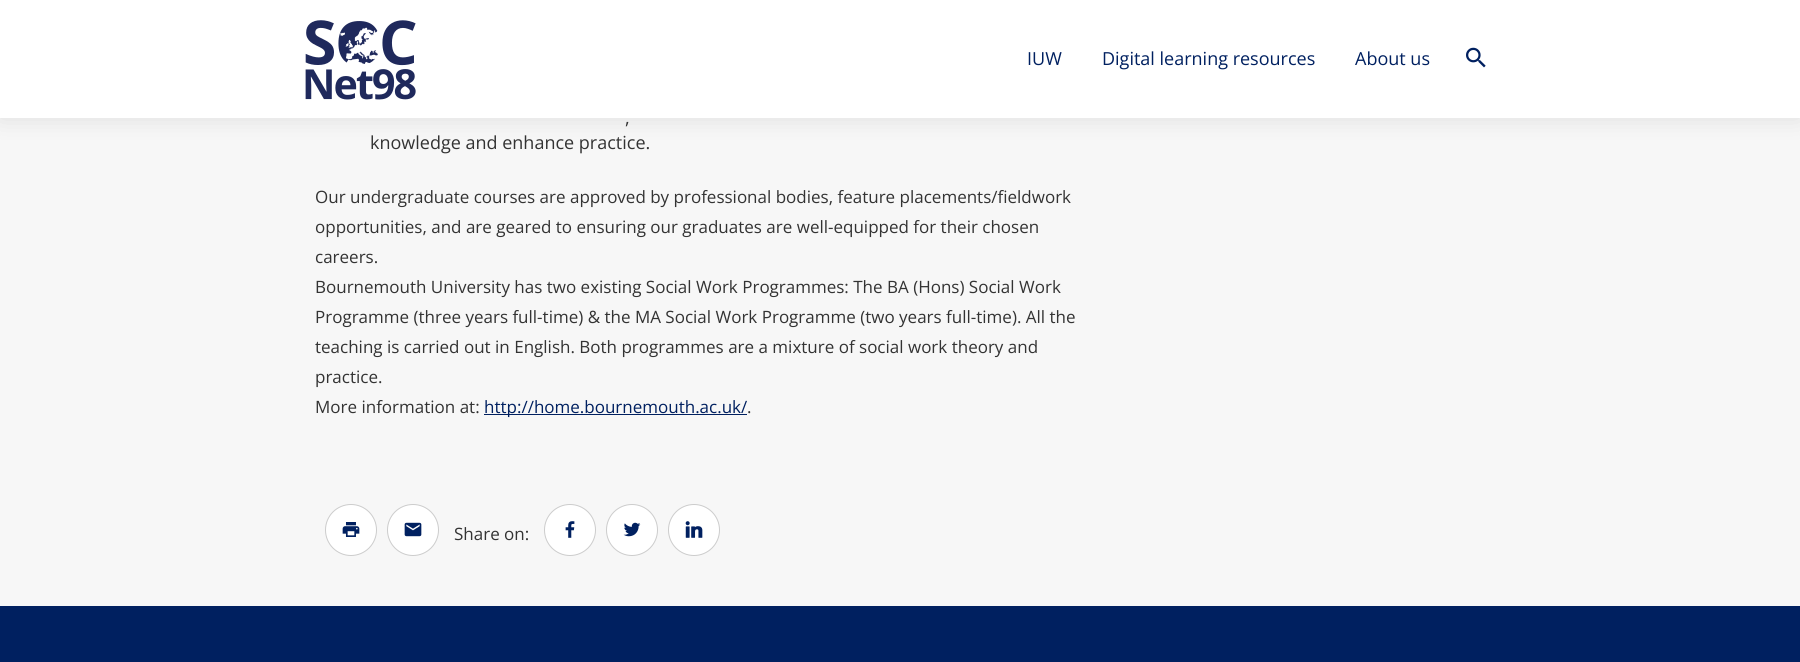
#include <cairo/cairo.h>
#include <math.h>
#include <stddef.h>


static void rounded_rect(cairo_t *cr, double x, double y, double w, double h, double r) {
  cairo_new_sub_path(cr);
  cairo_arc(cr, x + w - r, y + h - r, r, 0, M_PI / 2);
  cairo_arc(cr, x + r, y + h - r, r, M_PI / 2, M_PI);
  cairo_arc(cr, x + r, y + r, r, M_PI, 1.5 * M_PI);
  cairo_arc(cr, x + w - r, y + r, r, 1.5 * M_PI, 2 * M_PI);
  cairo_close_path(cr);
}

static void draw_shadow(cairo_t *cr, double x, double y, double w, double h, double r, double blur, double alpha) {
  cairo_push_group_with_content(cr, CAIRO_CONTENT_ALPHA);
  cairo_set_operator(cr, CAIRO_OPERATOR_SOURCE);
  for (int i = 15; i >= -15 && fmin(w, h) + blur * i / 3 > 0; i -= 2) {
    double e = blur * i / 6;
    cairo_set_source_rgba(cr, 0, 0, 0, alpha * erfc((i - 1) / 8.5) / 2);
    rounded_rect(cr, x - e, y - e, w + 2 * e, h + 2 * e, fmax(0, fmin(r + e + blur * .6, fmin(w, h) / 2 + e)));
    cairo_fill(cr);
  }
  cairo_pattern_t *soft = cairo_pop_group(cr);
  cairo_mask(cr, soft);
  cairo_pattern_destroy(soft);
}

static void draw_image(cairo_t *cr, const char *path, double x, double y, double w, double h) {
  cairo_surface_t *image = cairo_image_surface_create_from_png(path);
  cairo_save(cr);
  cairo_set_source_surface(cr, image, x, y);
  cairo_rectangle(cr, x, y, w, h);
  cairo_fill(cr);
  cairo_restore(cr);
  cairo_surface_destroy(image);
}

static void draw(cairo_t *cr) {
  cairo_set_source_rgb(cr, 0, 32 / 255.0, 96 / 255.0);
  cairo_paint(cr);
  cairo_set_source_rgb(cr, 247 / 255.0, 247 / 255.0, 247 / 255.0);
  cairo_rectangle(cr, 0, 118, 1800, 488);
  cairo_fill(cr);
  cairo_set_source_rgb(cr, 0, 0, 0);
  draw_shadow(cr, 0, 1, 1800, 118, 0, 11.5, 0.1);
  cairo_set_source_rgb(cr, 1, 1, 1);
  cairo_rectangle(cr, 0, 0, 1800, 118);
  cairo_fill(cr);
  draw_image(cr, "images/1.png", 305, 20, 111, 80);
  draw_image(cr, "images/2.png", 1466, 47, 20, 21);
  cairo_set_source_rgb(cr, 0, 32 / 255.0, 96 / 255.0);
  cairo_rectangle(cr, 484, 414, 263, 1);
  cairo_fill(cr);
  cairo_set_source_rgb(cr, 1, 1, 1);
  cairo_arc(cr, 351, 530, 25.5, 0, 2 * M_PI);
  cairo_fill_preserve(cr);
  cairo_set_source_rgb(cr, 204 / 255.0, 204 / 255.0, 204 / 255.0);
  cairo_set_line_width(cr, 1);
  cairo_stroke(cr);
  draw_image(cr, "images/3.png", 342, 522, 18, 15);
  cairo_set_source_rgb(cr, 1, 1, 1);
  cairo_arc(cr, 413, 530, 25.5, 0, 2 * M_PI);
  cairo_fill_preserve(cr);
  cairo_set_source_rgb(cr, 204 / 255.0, 204 / 255.0, 204 / 255.0);
  cairo_stroke(cr);
  draw_image(cr, "images/4.png", 404, 522, 18, 15);
  cairo_set_source_rgb(cr, 1, 1, 1);
  cairo_arc(cr, 570, 530, 25.5, 0, 2 * M_PI);
  cairo_fill_preserve(cr);
  cairo_set_source_rgb(cr, 204 / 255.0, 204 / 255.0, 204 / 255.0);
  cairo_stroke(cr);
  draw_image(cr, "images/5.png", 565, 521, 10, 17);
  cairo_set_source_rgb(cr, 1, 1, 1);
  cairo_arc(cr, 632, 530, 25.5, 0, 2 * M_PI);
  cairo_fill_preserve(cr);
  cairo_set_source_rgb(cr, 204 / 255.0, 204 / 255.0, 204 / 255.0);
  cairo_stroke(cr);
  draw_image(cr, "images/6.png", 623, 522, 18, 15);
  cairo_set_source_rgb(cr, 1, 1, 1);
  cairo_arc(cr, 694, 530, 25.5, 0, 2 * M_PI);
  cairo_fill_preserve(cr);
  cairo_set_source_rgb(cr, 204 / 255.0, 204 / 255.0, 204 / 255.0);
  cairo_stroke(cr);
  draw_image(cr, "images/7.png", 685, 521, 18, 17);
  cairo_select_font_face(cr, "Open Sans", CAIRO_FONT_SLANT_NORMAL, CAIRO_FONT_WEIGHT_NORMAL);
  cairo_set_font_size(cr, 18);
  cairo_set_source_rgb(cr, 0, 32 / 255.0, 96 / 255.0);
  cairo_move_to(cr, 1027, 65);
  cairo_show_text(cr, "IUW");
  cairo_move_to(cr, 1102, 65);
  cairo_show_text(cr, "Digital learning resources");
  cairo_move_to(cr, 1355, 65);
  cairo_show_text(cr, "About us");
  cairo_set_source_rgb(cr, 51 / 255.0, 51 / 255.0, 51 / 255.0);
  cairo_move_to(cr, 625, 124);
  cairo_show_text(cr, ",");
  cairo_move_to(cr, 370, 149);
  cairo_show_text(cr, "knowledge and enhance practice.");
  cairo_set_font_size(cr, 17);
  cairo_move_to(cr, 315, 203);
  cairo_show_text(cr, "Our undergraduate courses are approved by professional bodies, feature placements/fieldwork");
  cairo_move_to(cr, 315, 233);
  cairo_show_text(cr, "opportunities, and are geared to ensuring our graduates are well-equipped for their chosen");
  cairo_move_to(cr, 315, 263);
  cairo_show_text(cr, "careers.");
  cairo_move_to(cr, 315, 293);
  cairo_show_text(cr, "Bournemouth University has two existing Social Work Programmes: The BA (Hons) Social Work");
  cairo_move_to(cr, 315, 323);
  cairo_show_text(cr, "Programme (three years full-time) & the MA Social Work Programme (two years full-time). All the");
  cairo_move_to(cr, 315, 353);
  cairo_show_text(cr, "teaching is carried out in English. Both programmes are a mixture of social work theory and");
  cairo_move_to(cr, 315, 383);
  cairo_show_text(cr, "practice.");
  cairo_move_to(cr, 315, 413);
  cairo_show_text(cr, "More information at:");
  cairo_set_source_rgb(cr, 0, 32 / 255.0, 96 / 255.0);
  cairo_move_to(cr, 484, 413);
  cairo_show_text(cr, "http://home.bournemouth.ac.uk/");
  cairo_set_source_rgb(cr, 51 / 255.0, 51 / 255.0, 51 / 255.0);
  cairo_move_to(cr, 747, 413);
  cairo_show_text(cr, ".");
  cairo_move_to(cr, 454, 540);
  cairo_show_text(cr, "Share on:");
}

int main(void) {
  cairo_surface_t *surface = cairo_image_surface_create(CAIRO_FORMAT_RGB24, 1800, 662);
  cairo_t *cr = cairo_create(surface);
  cairo_font_options_t *options = cairo_font_options_create();
  cairo_font_options_set_hint_metrics(options, CAIRO_HINT_METRICS_OFF);
  cairo_font_options_set_hint_style(options, CAIRO_HINT_STYLE_NONE);
  cairo_set_font_options(cr, options);
  cairo_set_miter_limit(cr, 4);
  draw(cr);
  cairo_surface_write_to_png(surface, "out.png");
  cairo_font_options_destroy(options);
  cairo_destroy(cr);
  cairo_surface_destroy(surface);
  return 0;
}
